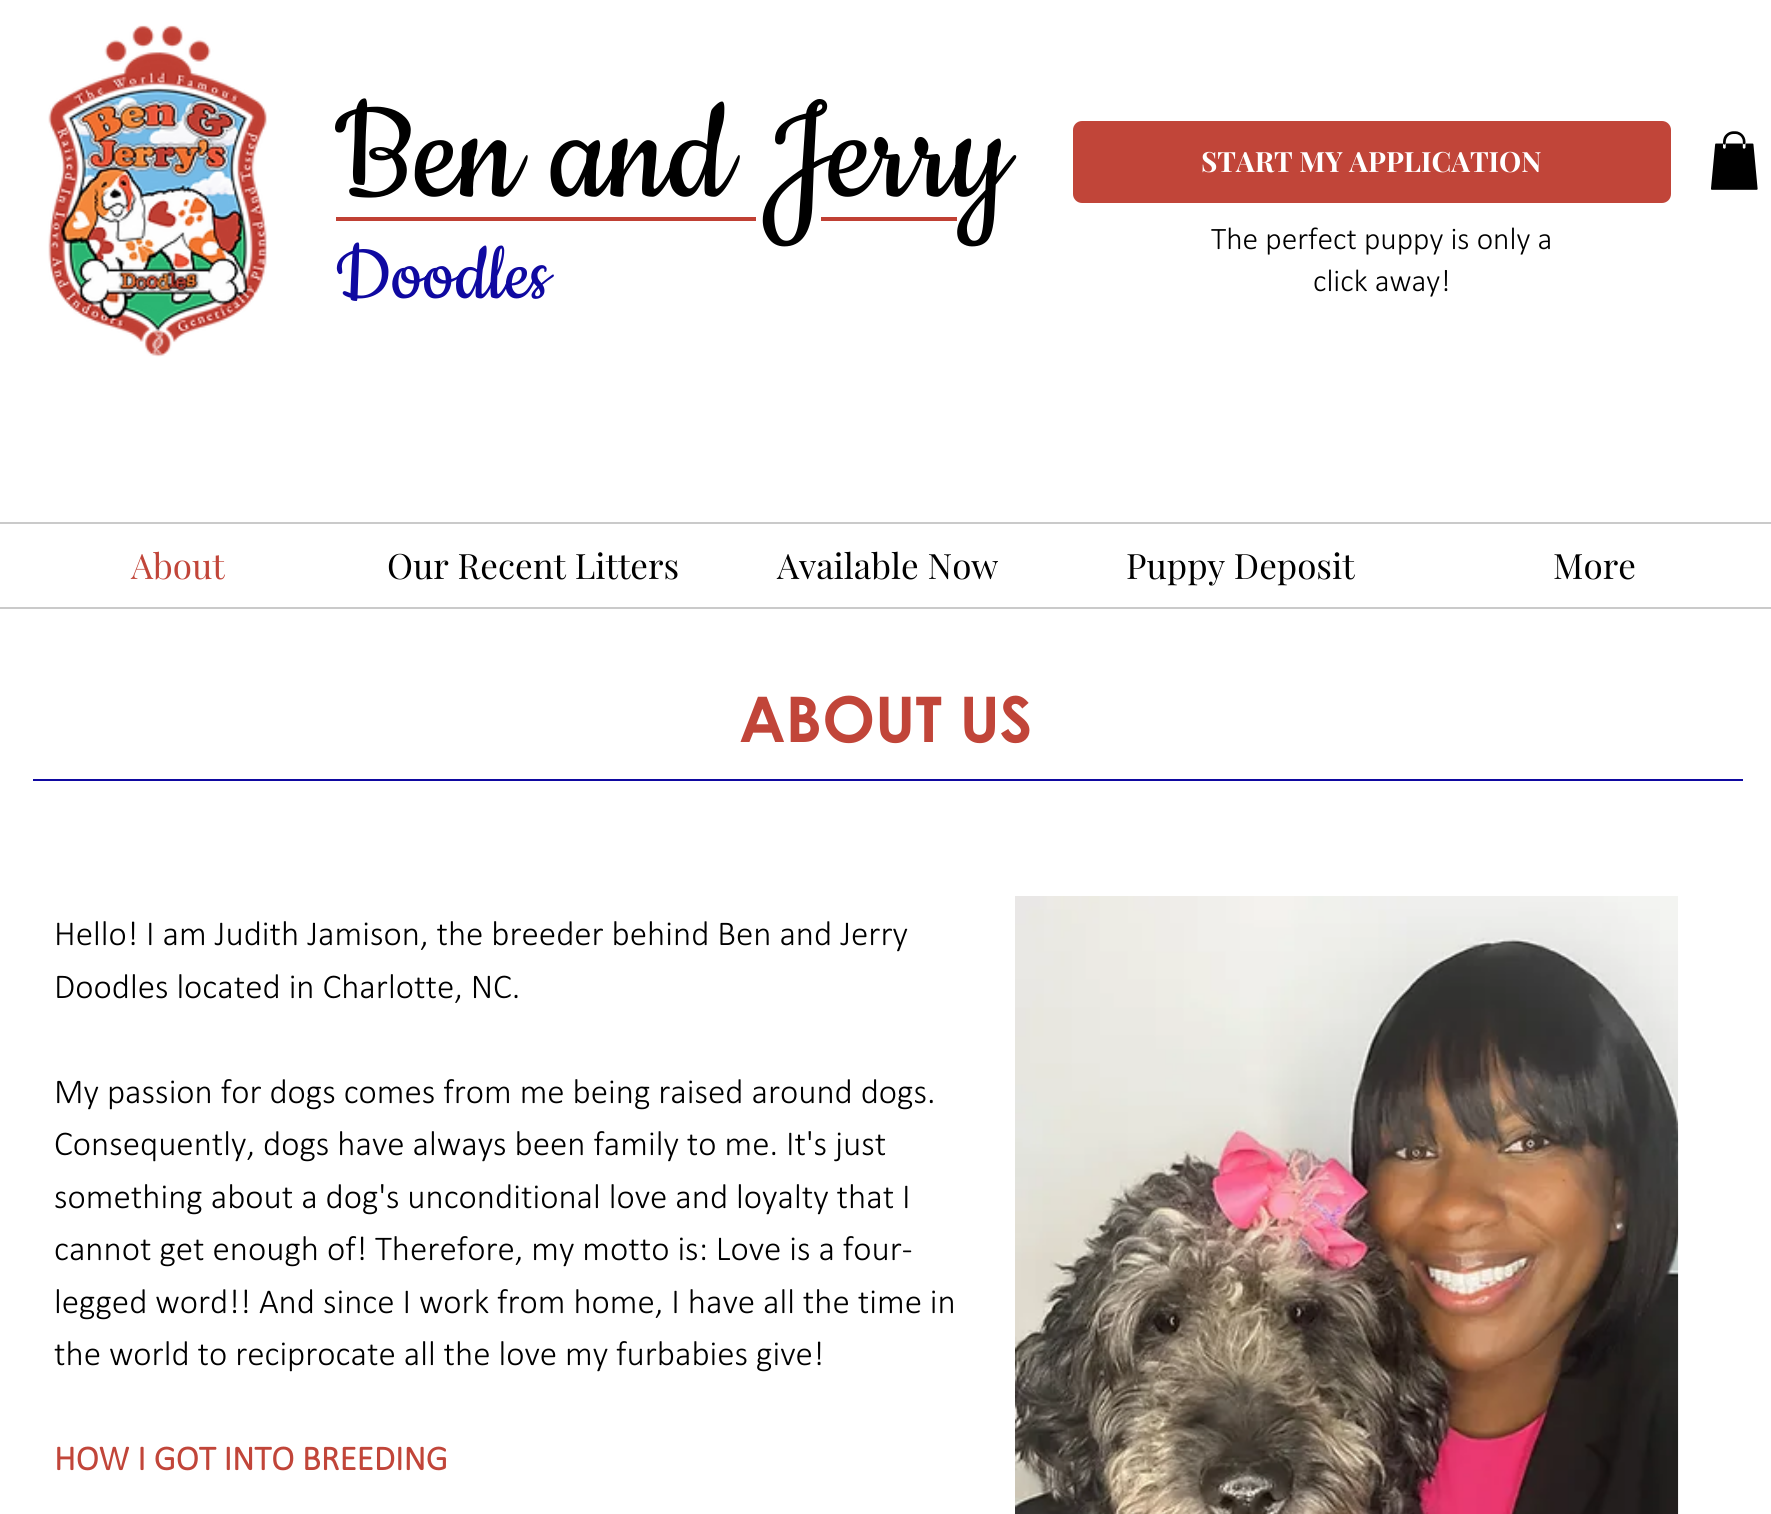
#include <cairo/cairo.h>
#include <math.h>
#include <stddef.h>


static void rounded_rect(cairo_t *cr, double x, double y, double w, double h, double r) {
  cairo_new_sub_path(cr);
  cairo_arc(cr, x + w - r, y + h - r, r, 0, M_PI / 2);
  cairo_arc(cr, x + r, y + h - r, r, M_PI / 2, M_PI);
  cairo_arc(cr, x + r, y + r, r, M_PI, 1.5 * M_PI);
  cairo_arc(cr, x + w - r, y + r, r, 1.5 * M_PI, 2 * M_PI);
  cairo_close_path(cr);
}

static void draw_image(cairo_t *cr, const char *path, double x, double y, double w, double h) {
  cairo_surface_t *image = cairo_image_surface_create_from_png(path);
  cairo_save(cr);
  cairo_set_source_surface(cr, image, x, y);
  cairo_rectangle(cr, x, y, w, h);
  cairo_fill(cr);
  cairo_restore(cr);
  cairo_surface_destroy(image);
}

static void draw(cairo_t *cr) {
  cairo_set_source_rgb(cr, 1, 1, 1);
  cairo_paint(cr);
  draw_image(cr, "images/1.png", 48, 25, 219, 332);
  cairo_set_source_rgb(cr, 193 / 255.0, 69 / 255.0, 57 / 255.0);
  rounded_rect(cr, 1073, 121, 598, 82, 9);
  cairo_fill(cr);
  draw_image(cr, "images/2.png", 1711, 131, 47, 59);
  cairo_set_source_rgb(cr, 202 / 255.0, 202 / 255.0, 202 / 255.0);
  cairo_rectangle(cr, 0, 522, 1771, 2);
  cairo_fill(cr);
  cairo_rectangle(cr, 0, 607, 1771, 2);
  cairo_fill(cr);
  cairo_set_source_rgb(cr, 15 / 255.0, 9 / 255.0, 161 / 255.0);
  cairo_rectangle(cr, 33, 779, 1710, 2);
  cairo_fill(cr);
  draw_image(cr, "images/3.png", 1015, 896, 664, 618);
  cairo_select_font_face(cr, "Cookie", CAIRO_FONT_SLANT_NORMAL, CAIRO_FONT_WEIGHT_NORMAL);
  cairo_set_font_size(cr, 157.5);
  cairo_set_source_rgb(cr, 0, 0, 0);
  cairo_move_to(cr, 335, 196);
  cairo_show_text(cr, "Ben and Jerry");
  cairo_set_font_size(cr, 87.5);
  cairo_set_source_rgb(cr, 15 / 255.0, 9 / 255.0, 161 / 255.0);
  cairo_move_to(cr, 335, 298);
  cairo_show_text(cr, "Doodles");
  cairo_set_source_rgb(cr, 192 / 255.0, 64 / 255.0, 52 / 255.0);
  cairo_rectangle(cr, 336, 217, 420, 4);
  cairo_fill(cr);
  cairo_rectangle(cr, 821, 217, 136, 4);
  cairo_fill(cr);
  cairo_select_font_face(cr, "Playfair Display", CAIRO_FONT_SLANT_NORMAL, CAIRO_FONT_WEIGHT_BOLD);
  cairo_set_font_size(cr, 28);
  cairo_set_source_rgb(cr, 1, 1, 1);
  cairo_move_to(cr, 1201, 172);
  cairo_show_text(cr, "START MY APPLICATION");
  cairo_select_font_face(cr, "Calibri Light", CAIRO_FONT_SLANT_NORMAL, CAIRO_FONT_WEIGHT_NORMAL);
  cairo_set_font_size(cr, 31.5);
  cairo_set_source_rgb(cr, 0, 0, 0);
  cairo_move_to(cr, 1211, 249);
  cairo_show_text(cr, "The perfect puppy is only a");
  cairo_move_to(cr, 1313, 291);
  cairo_show_text(cr, "click away!");
  cairo_select_font_face(cr, "Playfair Display", CAIRO_FONT_SLANT_NORMAL, CAIRO_FONT_WEIGHT_NORMAL);
  cairo_set_font_size(cr, 35);
  cairo_set_source_rgb(cr, 193 / 255.0, 69 / 255.0, 57 / 255.0);
  cairo_move_to(cr, 131, 579);
  cairo_show_text(cr, "About");
  cairo_set_source_rgb(cr, 0, 0, 0);
  cairo_move_to(cr, 387, 579);
  cairo_show_text(cr, "Our Recent Litters");
  cairo_move_to(cr, 777, 579);
  cairo_show_text(cr, "Available Now");
  cairo_move_to(cr, 1126, 579);
  cairo_show_text(cr, "Puppy Deposit");
  cairo_move_to(cr, 1553, 579);
  cairo_show_text(cr, "More");
  cairo_select_font_face(cr, "Century Gothic", CAIRO_FONT_SLANT_NORMAL, CAIRO_FONT_WEIGHT_BOLD);
  cairo_set_font_size(cr, 63);
  cairo_set_source_rgb(cr, 193 / 255.0, 69 / 255.0, 57 / 255.0);
  cairo_move_to(cr, 739, 742);
  cairo_show_text(cr, "ABOUT US");
  cairo_select_font_face(cr, "Calibri Light", CAIRO_FONT_SLANT_NORMAL, CAIRO_FONT_WEIGHT_NORMAL);
  cairo_set_font_size(cr, 35);
  cairo_set_source_rgb(cr, 0, 0, 0);
  cairo_move_to(cr, 54, 945);
  cairo_show_text(cr, "Hello! I am Judith Jamison, the breeder behind Ben and Jerry");
  cairo_move_to(cr, 54, 998);
  cairo_show_text(cr, "Doodles located in Charlotte, NC.");
  cairo_move_to(cr, 54, 1103);
  cairo_show_text(cr, "My passion for dogs comes from me being raised around dogs.");
  cairo_move_to(cr, 54, 1155);
  cairo_show_text(cr, "Consequently, dogs have always been family to me. It's just");
  cairo_move_to(cr, 54, 1208);
  cairo_show_text(cr, "something about a dog's unconditional love and loyalty that I");
  cairo_move_to(cr, 54, 1260);
  cairo_show_text(cr, "cannot get enough of! Therefore, my motto is: Love is a four-");
  cairo_move_to(cr, 54, 1313);
  cairo_show_text(cr, "legged word!! And since I work from home, I have all the time in");
  cairo_move_to(cr, 54, 1365);
  cairo_show_text(cr, "the world to reciprocate all the love my furbabies give!");
  cairo_select_font_face(cr, "Calibri", CAIRO_FONT_SLANT_NORMAL, CAIRO_FONT_WEIGHT_BOLD);
  cairo_set_source_rgb(cr, 193 / 255.0, 69 / 255.0, 57 / 255.0);
  cairo_move_to(cr, 54, 1470);
  cairo_show_text(cr, "HOW I GOT INTO BREEDING");
}

int main(void) {
  cairo_surface_t *surface = cairo_image_surface_create(CAIRO_FORMAT_RGB24, 1771, 1514);
  cairo_t *cr = cairo_create(surface);
  cairo_font_options_t *options = cairo_font_options_create();
  cairo_font_options_set_hint_metrics(options, CAIRO_HINT_METRICS_OFF);
  cairo_font_options_set_hint_style(options, CAIRO_HINT_STYLE_NONE);
  cairo_set_font_options(cr, options);
  cairo_set_miter_limit(cr, 4);
  draw(cr);
  cairo_surface_write_to_png(surface, "out.png");
  cairo_font_options_destroy(options);
  cairo_destroy(cr);
  cairo_surface_destroy(surface);
  return 0;
}
